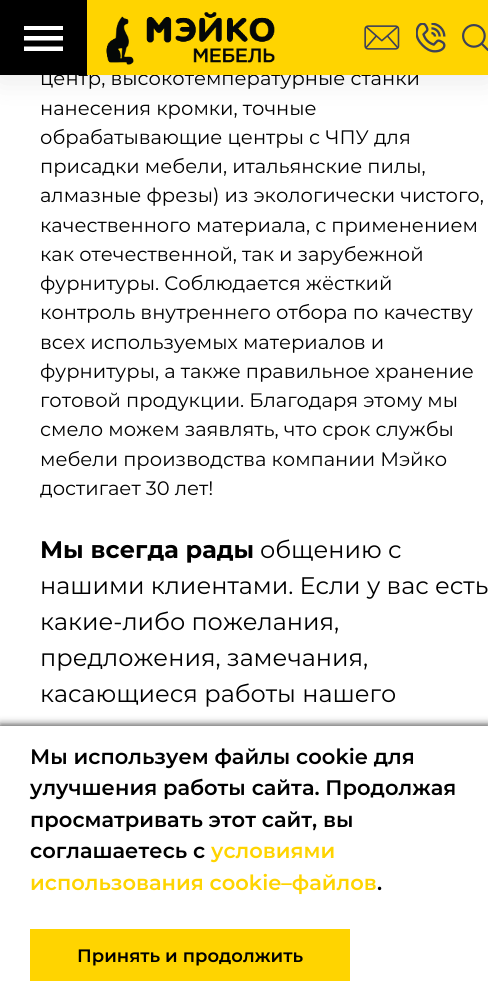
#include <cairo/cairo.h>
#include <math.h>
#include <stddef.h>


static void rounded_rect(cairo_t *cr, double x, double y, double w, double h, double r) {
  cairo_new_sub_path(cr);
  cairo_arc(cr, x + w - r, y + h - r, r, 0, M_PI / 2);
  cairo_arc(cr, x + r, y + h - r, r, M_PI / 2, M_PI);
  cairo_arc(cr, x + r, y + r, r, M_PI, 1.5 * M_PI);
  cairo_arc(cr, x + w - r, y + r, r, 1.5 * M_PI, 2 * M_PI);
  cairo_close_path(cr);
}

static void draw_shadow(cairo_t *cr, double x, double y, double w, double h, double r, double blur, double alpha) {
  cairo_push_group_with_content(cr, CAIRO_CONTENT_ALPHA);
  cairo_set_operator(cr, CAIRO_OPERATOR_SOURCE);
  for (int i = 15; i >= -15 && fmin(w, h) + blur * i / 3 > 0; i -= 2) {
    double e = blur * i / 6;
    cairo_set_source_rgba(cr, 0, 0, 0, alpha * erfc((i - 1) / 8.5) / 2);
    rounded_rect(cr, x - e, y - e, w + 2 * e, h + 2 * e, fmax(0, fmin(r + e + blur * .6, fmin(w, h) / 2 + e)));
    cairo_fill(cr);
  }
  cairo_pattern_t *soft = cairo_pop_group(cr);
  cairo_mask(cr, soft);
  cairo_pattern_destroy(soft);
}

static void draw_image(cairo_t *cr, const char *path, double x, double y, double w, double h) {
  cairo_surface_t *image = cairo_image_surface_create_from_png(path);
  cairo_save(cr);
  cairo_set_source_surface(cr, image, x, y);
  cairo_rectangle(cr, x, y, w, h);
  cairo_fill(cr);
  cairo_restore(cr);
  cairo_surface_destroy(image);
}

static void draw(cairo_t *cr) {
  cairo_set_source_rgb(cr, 1, 1, 1);
  cairo_paint(cr);
  cairo_set_source_rgb(cr, 0, 0, 0);
  draw_shadow(cr, 0, 3, 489, 75, 0, 15, 0.1);
  cairo_set_source_rgb(cr, 0, 0, 0);
  cairo_rectangle(cr, 0, 0, 87, 75);
  cairo_fill(cr);
  cairo_save(cr);
  cairo_rectangle(cr, 24, 26, 39, 25);
  cairo_clip(cr);
  cairo_set_source_rgb(cr, 1, 1, 1);
  cairo_new_path(cr);
  cairo_move_to(cr, 24, 25.5);
  cairo_line_to(cr, 63, 25.5);
  cairo_line_to(cr, 63, 30);
  cairo_line_to(cr, 24, 30);
  cairo_close_path(cr);
  cairo_move_to(cr, 24, 36);
  cairo_line_to(cr, 63, 36);
  cairo_line_to(cr, 63, 40.5);
  cairo_line_to(cr, 24, 40.5);
  cairo_close_path(cr);
  cairo_move_to(cr, 24, 46.5);
  cairo_line_to(cr, 63, 46.5);
  cairo_line_to(cr, 63, 51);
  cairo_line_to(cr, 24, 51);
  cairo_close_path(cr);
  cairo_fill(cr);
  cairo_restore(cr);
  cairo_set_source_rgb(cr, 0, 0, 0);
  draw_shadow(cr, 0, 725, 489, 270, 0, 4, 0.75);
  cairo_set_source_rgb(cr, 1, 1, 1);
  cairo_rectangle(cr, 0, 726, 488, 269);
  cairo_fill(cr);
  cairo_set_source_rgb(cr, 1, 212 / 255.0, 0);
  cairo_rectangle(cr, 30, 929, 320, 52);
  cairo_fill(cr);
  cairo_select_font_face(cr, "Montserrat", CAIRO_FONT_SLANT_NORMAL, CAIRO_FONT_WEIGHT_NORMAL);
  cairo_set_font_size(cr, 19.5);
  cairo_set_source_rgb(cr, 0, 0, 0);
  cairo_move_to(cr, 40, 85);
  cairo_show_text(cr, "центр, высокотемпературные станки");
  cairo_set_source_rgb(cr, 1, 212 / 255.0, 0);
  cairo_rectangle(cr, 87, 0, 401, 75);
  cairo_fill(cr);
  draw_image(cr, "images/4.png", 462, 24, 26, 27);
  draw_image(cr, "images/3.png", 416, 23, 30, 30);
  draw_image(cr, "images/2.png", 364, 25, 36, 25);
  draw_image(cr, "images/1.png", 106, 12, 169, 53);
  cairo_set_source_rgb(cr, 0, 0, 0);
  cairo_move_to(cr, 40, 115);
  cairo_show_text(cr, "нанесения кромки, точные");
  cairo_move_to(cr, 40, 144);
  cairo_show_text(cr, "обрабатывающие центры с ЧПУ для");
  cairo_move_to(cr, 40, 173);
  cairo_show_text(cr, "присадки мебели, итальянские пилы,");
  cairo_move_to(cr, 40, 202);
  cairo_show_text(cr, "алмазные фрезы) из экологически чистого,");
  cairo_move_to(cr, 40, 232);
  cairo_show_text(cr, "качественного материала, с применением");
  cairo_move_to(cr, 40, 261);
  cairo_show_text(cr, "как отечественной, так и зарубежной");
  cairo_move_to(cr, 40, 290);
  cairo_show_text(cr, "фурнитуры. Соблюдается жёсткий");
  cairo_move_to(cr, 40, 319);
  cairo_show_text(cr, "контроль внутреннего отбора по качеству");
  cairo_move_to(cr, 40, 349);
  cairo_show_text(cr, "всех используемых материалов и");
  cairo_move_to(cr, 40, 378);
  cairo_show_text(cr, "фурнитуры, а также правильное хранение");
  cairo_move_to(cr, 40, 407);
  cairo_show_text(cr, "готовой продукции. Благодаря этому мы");
  cairo_move_to(cr, 40, 436);
  cairo_show_text(cr, "смело можем заявлять, что срок службы");
  cairo_move_to(cr, 40, 466);
  cairo_show_text(cr, "мебели производства компании Мэйко");
  cairo_move_to(cr, 40, 495);
  cairo_show_text(cr, "достигает 30 лет!");
  cairo_select_font_face(cr, "Montserrat", CAIRO_FONT_SLANT_NORMAL, CAIRO_FONT_WEIGHT_BOLD);
  cairo_set_font_size(cr, 24);
  cairo_move_to(cr, 40, 558);
  cairo_show_text(cr, "Мы всегда рады");
  cairo_select_font_face(cr, "Montserrat", CAIRO_FONT_SLANT_NORMAL, CAIRO_FONT_WEIGHT_NORMAL);
  cairo_move_to(cr, 260, 558);
  cairo_show_text(cr, "общению с");
  cairo_move_to(cr, 40, 594);
  cairo_show_text(cr, "нашими клиентами. Если у вас есть");
  cairo_move_to(cr, 40, 630);
  cairo_show_text(cr, "какие-либо пожелания,");
  cairo_move_to(cr, 40, 666);
  cairo_show_text(cr, "предложения, замечания,");
  cairo_move_to(cr, 40, 702);
  cairo_show_text(cr, "касающиеся работы нашего");
  cairo_select_font_face(cr, "Montserrat SemiBold", CAIRO_FONT_SLANT_NORMAL, CAIRO_FONT_WEIGHT_NORMAL);
  cairo_set_font_size(cr, 21);
  cairo_move_to(cr, 30, 764);
  cairo_show_text(cr, "Мы используем файлы cookie для");
  cairo_move_to(cr, 30, 795);
  cairo_show_text(cr, "улучшения работы сайта. Продолжая");
  cairo_move_to(cr, 30, 827);
  cairo_show_text(cr, "просматривать этот сайт, вы");
  cairo_move_to(cr, 30, 858);
  cairo_show_text(cr, "соглашаетесь с");
  cairo_set_source_rgb(cr, 1, 212 / 255.0, 0);
  cairo_move_to(cr, 211, 858);
  cairo_show_text(cr, "условиями");
  cairo_move_to(cr, 30, 890);
  cairo_show_text(cr, "использования cookie–файлов");
  cairo_set_source_rgb(cr, 0, 0, 0);
  cairo_move_to(cr, 377, 890);
  cairo_show_text(cr, ".");
  cairo_set_font_size(cr, 18);
  cairo_move_to(cr, 77, 962);
  cairo_show_text(cr, "Принять и продолжить");
}

int main(void) {
  cairo_surface_t *surface = cairo_image_surface_create(CAIRO_FORMAT_RGB24, 488, 995);
  cairo_t *cr = cairo_create(surface);
  cairo_font_options_t *options = cairo_font_options_create();
  cairo_font_options_set_hint_metrics(options, CAIRO_HINT_METRICS_OFF);
  cairo_font_options_set_hint_style(options, CAIRO_HINT_STYLE_NONE);
  cairo_set_font_options(cr, options);
  cairo_set_miter_limit(cr, 4);
  draw(cr);
  cairo_surface_write_to_png(surface, "out.png");
  cairo_font_options_destroy(options);
  cairo_destroy(cr);
  cairo_surface_destroy(surface);
  return 0;
}
